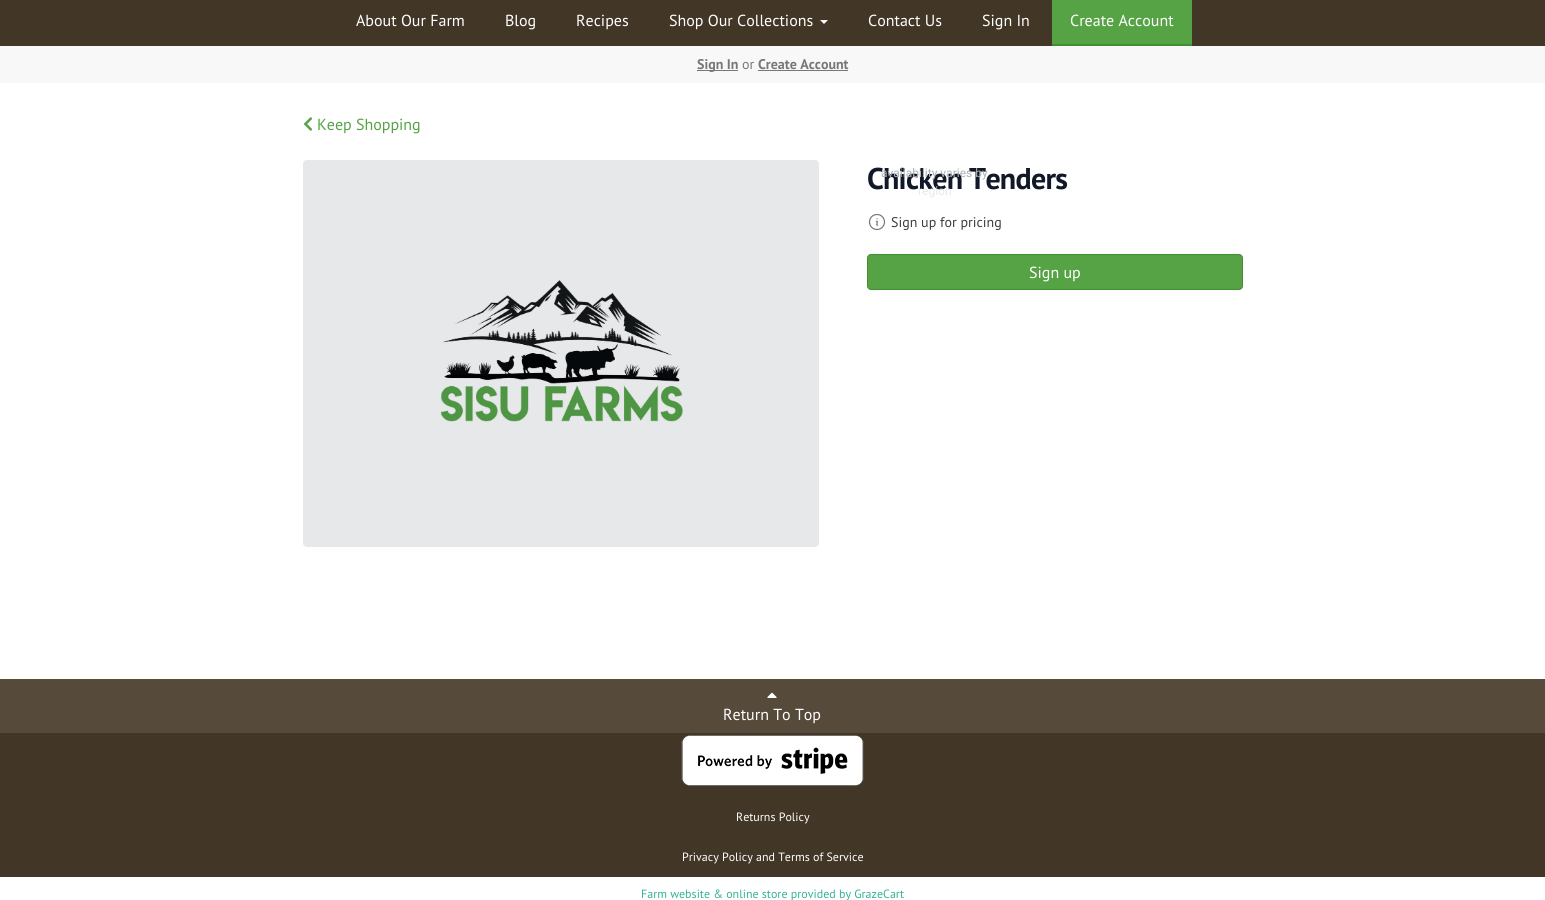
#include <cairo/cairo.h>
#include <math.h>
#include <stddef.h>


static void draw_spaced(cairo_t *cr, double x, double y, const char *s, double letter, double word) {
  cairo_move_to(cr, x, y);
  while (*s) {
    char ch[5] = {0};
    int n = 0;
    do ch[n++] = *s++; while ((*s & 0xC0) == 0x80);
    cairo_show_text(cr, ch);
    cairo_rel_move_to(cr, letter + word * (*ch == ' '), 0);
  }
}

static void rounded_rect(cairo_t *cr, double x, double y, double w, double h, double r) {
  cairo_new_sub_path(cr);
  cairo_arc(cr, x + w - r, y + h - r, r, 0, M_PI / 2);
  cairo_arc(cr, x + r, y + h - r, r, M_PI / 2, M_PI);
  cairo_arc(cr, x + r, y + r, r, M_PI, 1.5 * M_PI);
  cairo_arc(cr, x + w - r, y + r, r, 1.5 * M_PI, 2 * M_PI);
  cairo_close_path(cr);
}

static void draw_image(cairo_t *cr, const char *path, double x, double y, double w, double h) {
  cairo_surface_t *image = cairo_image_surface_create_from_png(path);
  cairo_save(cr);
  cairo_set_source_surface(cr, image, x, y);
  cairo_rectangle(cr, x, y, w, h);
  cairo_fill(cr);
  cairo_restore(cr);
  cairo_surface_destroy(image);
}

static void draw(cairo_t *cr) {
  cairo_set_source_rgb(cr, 1, 1, 1);
  cairo_paint(cr);
  cairo_set_source_rgb(cr, 66 / 255.0, 54 / 255.0, 38 / 255.0);
  cairo_rectangle(cr, 0, 0, 1545, 46);
  cairo_fill(cr);
  cairo_set_source_rgb(cr, 1, 1, 1);
  cairo_new_path(cr);
  cairo_move_to(cr, 820, 20);
  cairo_line_to(cr, 828, 20);
  cairo_line_to(cr, 824, 24);
  cairo_close_path(cr);
  cairo_fill(cr);
  cairo_set_source_rgb(cr, 86 / 255.0, 163 / 255.0, 69 / 255.0);
  cairo_rectangle(cr, 1052, 0, 140, 44);
  cairo_fill(cr);
  cairo_set_source_rgb(cr, 66 / 255.0, 143 / 255.0, 49 / 255.0);
  cairo_rectangle(cr, 1052, 44, 140, 2);
  cairo_fill(cr);
  cairo_set_source_rgb(cr, 248 / 255.0, 248 / 255.0, 248 / 255.0);
  cairo_rectangle(cr, 0, 46, 1545, 37);
  cairo_fill(cr);
  cairo_set_source_rgb(cr, 119 / 255.0, 119 / 255.0, 119 / 255.0);
  cairo_rectangle(cr, 697, 70, 41, 1);
  cairo_fill(cr);
  cairo_rectangle(cr, 758, 70, 90, 1);
  cairo_fill(cr);
  draw_image(cr, "images/1.png", 303, 117, 10, 14);
  draw_image(cr, "images/2.png", 440, 280, 243, 142);
  cairo_set_source_rgba(cr, 17 / 255.0, 24 / 255.0, 39 / 255.0, 0.1);
  rounded_rect(cr, 303, 160, 516, 387, 4);
  cairo_fill(cr);
  draw_image(cr, "images/3.png", 868, 213, 18, 18);
  cairo_set_source_rgb(cr, 86 / 255.0, 163 / 255.0, 69 / 255.0);
  rounded_rect(cr, 867.5, 254.5, 375, 35, 3.5);
  cairo_fill_preserve(cr);
  cairo_set_source_rgb(cr, 66 / 255.0, 143 / 255.0, 49 / 255.0);
  cairo_set_line_width(cr, 1);
  cairo_stroke(cr);
  cairo_set_source_rgb(cr, 86 / 255.0, 74 / 255.0, 58 / 255.0);
  cairo_rectangle(cr, 0, 679, 1545, 54);
  cairo_fill(cr);
  draw_image(cr, "images/4.png", 767, 692, 10, 6);
  cairo_set_source_rgb(cr, 66 / 255.0, 54 / 255.0, 38 / 255.0);
  cairo_rectangle(cr, 0, 733, 1545, 144);
  cairo_fill(cr);
  draw_image(cr, "images/5.png", 681, 735, 183, 51);
  cairo_select_font_face(cr, "PT Sans", CAIRO_FONT_SLANT_NORMAL, CAIRO_FONT_WEIGHT_NORMAL);
  cairo_set_font_size(cr, 16);
  cairo_set_source_rgb(cr, 1, 1, 1);
  cairo_move_to(cr, 356, 26);
  cairo_show_text(cr, "About Our Farm");
  cairo_move_to(cr, 505, 26);
  cairo_show_text(cr, "Blog");
  cairo_move_to(cr, 576, 26);
  cairo_show_text(cr, "Recipes");
  cairo_move_to(cr, 669, 26);
  cairo_show_text(cr, "Shop Our Collections");
  cairo_move_to(cr, 868, 26);
  cairo_show_text(cr, "Contact Us");
  cairo_move_to(cr, 982, 26);
  cairo_show_text(cr, "Sign In");
  cairo_move_to(cr, 1070, 26);
  cairo_show_text(cr, "Create Account");
  cairo_select_font_face(cr, "PT Sans", CAIRO_FONT_SLANT_NORMAL, CAIRO_FONT_WEIGHT_BOLD);
  cairo_set_font_size(cr, 14);
  cairo_set_source_rgb(cr, 119 / 255.0, 119 / 255.0, 119 / 255.0);
  cairo_move_to(cr, 697, 69);
  cairo_show_text(cr, "Sign In");
  cairo_select_font_face(cr, "PT Sans", CAIRO_FONT_SLANT_NORMAL, CAIRO_FONT_WEIGHT_NORMAL);
  cairo_move_to(cr, 742, 69);
  cairo_show_text(cr, "or");
  cairo_select_font_face(cr, "PT Sans", CAIRO_FONT_SLANT_NORMAL, CAIRO_FONT_WEIGHT_BOLD);
  cairo_move_to(cr, 758, 69);
  cairo_show_text(cr, "Create Account");
  cairo_select_font_face(cr, "PT Sans", CAIRO_FONT_SLANT_NORMAL, CAIRO_FONT_WEIGHT_NORMAL);
  cairo_set_font_size(cr, 16);
  cairo_set_source_rgb(cr, 86 / 255.0, 163 / 255.0, 69 / 255.0);
  cairo_move_to(cr, 317, 130);
  cairo_show_text(cr, "Keep Shopping");
  cairo_select_font_face(cr, "PT Sans", CAIRO_FONT_SLANT_NORMAL, CAIRO_FONT_WEIGHT_BOLD);
  cairo_set_font_size(cr, 30);
  cairo_set_source_rgb(cr, 17 / 255.0, 24 / 255.0, 39 / 255.0);
  draw_spaced(cr, 867, 189, "Chicken Tenders", -0.75, 0);
  cairo_select_font_face(cr, "Roboto", CAIRO_FONT_SLANT_NORMAL, CAIRO_FONT_WEIGHT_NORMAL);
  cairo_set_font_size(cr, 12);
  cairo_set_source_rgb(cr, 174 / 255.0, 176 / 255.0, 181 / 255.0);
  cairo_move_to(cr, 881, 177);
  cairo_show_text(cr, "availability varies by");
  cairo_set_source_rgb(cr, 232 / 255.0, 233 / 255.0, 234 / 255.0);
  cairo_move_to(cr, 918, 195);
  cairo_show_text(cr, "region");
  cairo_select_font_face(cr, "PT Sans", CAIRO_FONT_SLANT_NORMAL, CAIRO_FONT_WEIGHT_NORMAL);
  cairo_set_font_size(cr, 14);
  cairo_set_source_rgb(cr, 61 / 255.0, 61 / 255.0, 61 / 255.0);
  cairo_move_to(cr, 891, 227);
  cairo_show_text(cr, "Sign up for pricing");
  cairo_set_font_size(cr, 16);
  cairo_set_source_rgb(cr, 1, 1, 1);
  cairo_move_to(cr, 1029, 278);
  cairo_show_text(cr, "Sign up");
  cairo_move_to(cr, 723, 720);
  cairo_show_text(cr, "Return To Top");
  cairo_set_font_size(cr, 12);
  cairo_move_to(cr, 736, 821);
  cairo_show_text(cr, "Returns Policy");
  cairo_move_to(cr, 682, 861);
  cairo_show_text(cr, "Privacy Policy and Terms of Service");
  cairo_set_source_rgb(cr, 52 / 255.0, 179 / 255.0, 147 / 255.0);
  cairo_move_to(cr, 641, 898);
  cairo_show_text(cr, "Farm website & online store provided by GrazeCart");
}

int main(void) {
  cairo_surface_t *surface = cairo_image_surface_create(CAIRO_FORMAT_RGB24, 1545, 900);
  cairo_t *cr = cairo_create(surface);
  cairo_font_options_t *options = cairo_font_options_create();
  cairo_font_options_set_hint_metrics(options, CAIRO_HINT_METRICS_OFF);
  cairo_font_options_set_hint_style(options, CAIRO_HINT_STYLE_NONE);
  cairo_set_font_options(cr, options);
  cairo_set_miter_limit(cr, 4);
  draw(cr);
  cairo_surface_write_to_png(surface, "out.png");
  cairo_font_options_destroy(options);
  cairo_destroy(cr);
  cairo_surface_destroy(surface);
  return 0;
}
